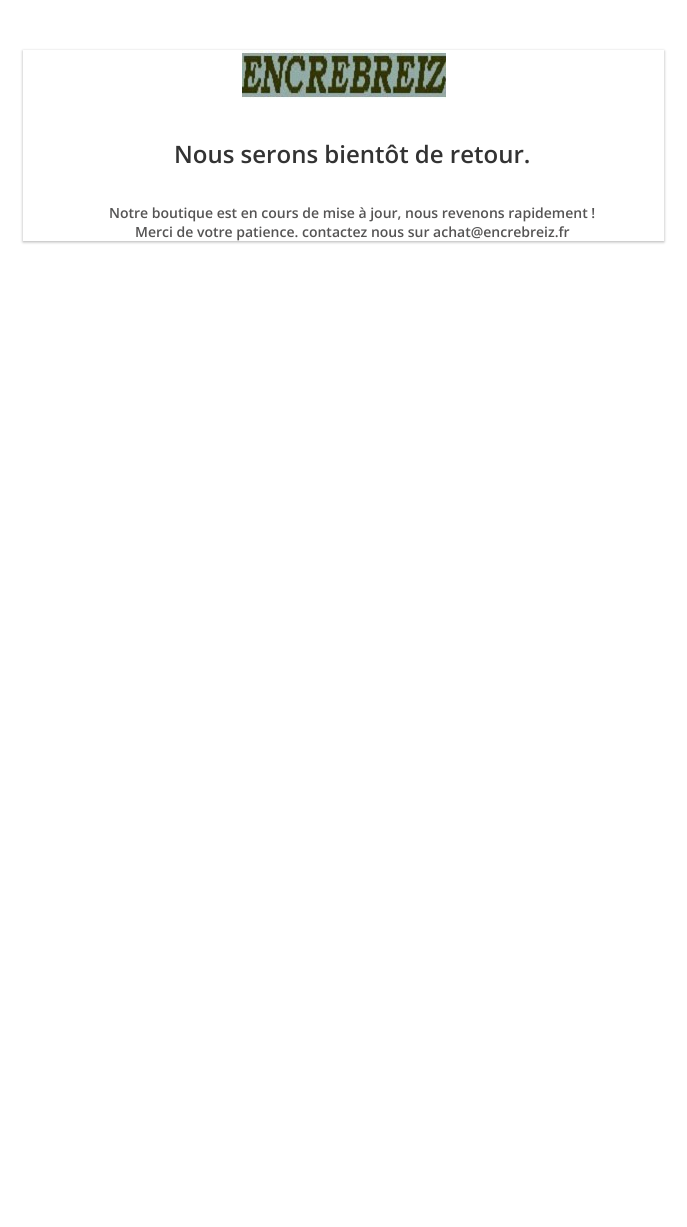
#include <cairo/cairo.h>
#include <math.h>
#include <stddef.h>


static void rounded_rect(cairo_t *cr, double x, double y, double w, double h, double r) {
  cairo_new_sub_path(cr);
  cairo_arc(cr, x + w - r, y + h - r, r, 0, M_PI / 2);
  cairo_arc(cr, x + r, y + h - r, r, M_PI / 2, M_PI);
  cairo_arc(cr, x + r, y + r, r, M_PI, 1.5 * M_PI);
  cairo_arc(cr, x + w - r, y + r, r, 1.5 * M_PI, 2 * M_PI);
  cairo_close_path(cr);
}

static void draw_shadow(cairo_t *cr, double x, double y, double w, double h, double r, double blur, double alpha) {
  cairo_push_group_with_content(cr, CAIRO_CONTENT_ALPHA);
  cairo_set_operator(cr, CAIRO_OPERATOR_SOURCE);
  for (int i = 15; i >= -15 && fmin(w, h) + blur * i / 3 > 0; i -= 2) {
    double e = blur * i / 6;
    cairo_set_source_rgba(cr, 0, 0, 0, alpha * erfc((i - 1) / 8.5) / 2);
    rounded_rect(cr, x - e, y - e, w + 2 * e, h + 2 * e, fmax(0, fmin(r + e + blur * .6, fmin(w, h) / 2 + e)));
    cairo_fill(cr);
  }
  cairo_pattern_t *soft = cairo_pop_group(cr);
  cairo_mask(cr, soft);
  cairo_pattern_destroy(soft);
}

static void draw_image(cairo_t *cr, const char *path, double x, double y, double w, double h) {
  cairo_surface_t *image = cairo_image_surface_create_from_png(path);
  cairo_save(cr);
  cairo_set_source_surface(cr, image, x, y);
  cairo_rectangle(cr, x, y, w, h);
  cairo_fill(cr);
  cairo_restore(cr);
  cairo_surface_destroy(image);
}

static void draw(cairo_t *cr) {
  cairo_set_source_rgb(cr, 1, 1, 1);
  cairo_paint(cr);
  cairo_save(cr);
  cairo_set_fill_rule(cr, CAIRO_FILL_RULE_EVEN_ODD);
  cairo_new_path(cr);
  cairo_move_to(cr, 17, 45);
  cairo_line_to(cr, 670, 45);
  cairo_line_to(cr, 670, 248);
  cairo_line_to(cr, 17, 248);
  cairo_close_path(cr);
  cairo_move_to(cr, 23, 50);
  cairo_line_to(cr, 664, 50);
  cairo_line_to(cr, 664, 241);
  cairo_line_to(cr, 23, 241);
  cairo_close_path(cr);
  cairo_clip(cr);
  cairo_set_source_rgb(cr, 0, 0, 0);
  draw_shadow(cr, 23, 51, 641, 191, 0, 1.5, 0.3);
  cairo_restore(cr);
  draw_image(cr, "images/1.png", 242, 50, 204, 49);
  cairo_select_font_face(cr, "Open Sans SemiBold", CAIRO_FONT_SLANT_NORMAL, CAIRO_FONT_WEIGHT_NORMAL);
  cairo_set_font_size(cr, 24);
  cairo_set_source_rgb(cr, 51 / 255.0, 51 / 255.0, 51 / 255.0);
  cairo_move_to(cr, 174, 163);
  cairo_show_text(cr, "Nous serons bientôt de retour.");
  cairo_set_font_size(cr, 14);
  cairo_set_source_rgb(cr, 85 / 255.0, 84 / 255.0, 84 / 255.0);
  cairo_move_to(cr, 109, 218);
  cairo_show_text(cr, "Notre boutique est en cours de mise à jour, nous revenons rapidement !");
  cairo_move_to(cr, 135, 237);
  cairo_show_text(cr, "Merci de votre patience. contactez nous sur achat@encrebreiz.fr");
}

int main(void) {
  cairo_surface_t *surface = cairo_image_surface_create(CAIRO_FORMAT_RGB24, 687, 1227);
  cairo_t *cr = cairo_create(surface);
  cairo_font_options_t *options = cairo_font_options_create();
  cairo_font_options_set_hint_metrics(options, CAIRO_HINT_METRICS_OFF);
  cairo_font_options_set_hint_style(options, CAIRO_HINT_STYLE_NONE);
  cairo_set_font_options(cr, options);
  cairo_set_miter_limit(cr, 4);
  draw(cr);
  cairo_surface_write_to_png(surface, "out.png");
  cairo_font_options_destroy(options);
  cairo_destroy(cr);
  cairo_surface_destroy(surface);
  return 0;
}
